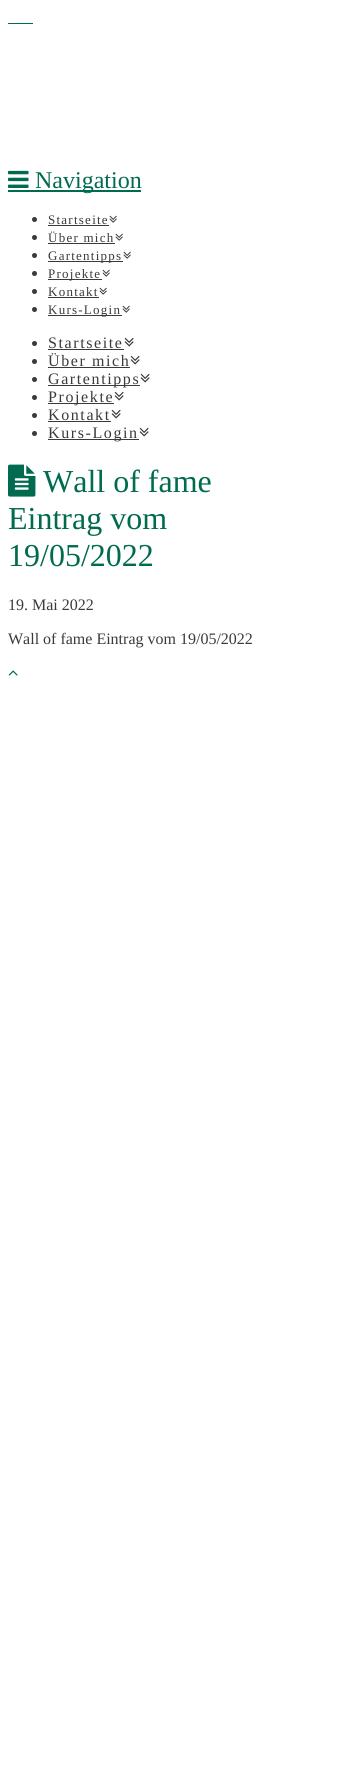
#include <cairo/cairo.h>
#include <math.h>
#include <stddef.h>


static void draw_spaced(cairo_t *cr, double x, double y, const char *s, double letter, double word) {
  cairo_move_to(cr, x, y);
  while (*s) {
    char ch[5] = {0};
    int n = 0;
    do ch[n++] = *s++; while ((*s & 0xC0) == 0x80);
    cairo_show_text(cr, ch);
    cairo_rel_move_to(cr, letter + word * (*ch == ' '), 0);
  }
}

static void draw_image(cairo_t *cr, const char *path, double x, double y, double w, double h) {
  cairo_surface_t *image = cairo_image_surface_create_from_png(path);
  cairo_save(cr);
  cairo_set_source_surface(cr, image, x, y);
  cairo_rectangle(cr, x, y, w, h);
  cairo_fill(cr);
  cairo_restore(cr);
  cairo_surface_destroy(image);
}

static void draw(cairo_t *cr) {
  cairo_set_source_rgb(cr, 1, 1, 1);
  cairo_paint(cr);
  cairo_set_source_rgb(cr, 0, 107 / 255.0, 79 / 255.0);
  cairo_rectangle(cr, 8, 23, 25, 1);
  cairo_fill(cr);
  cairo_rectangle(cr, 8, 190, 133, 2);
  cairo_fill(cr);
  draw_image(cr, "images/1.png", 8, 170, 21, 18);
  cairo_set_source_rgb(cr, 60 / 255.0, 57 / 255.0, 57 / 255.0);
  cairo_arc(cr, 34.5, 219.5, 2.5, 0, 2 * M_PI);
  cairo_fill(cr);
  cairo_rectangle(cr, 48, 225, 61, 1);
  cairo_fill(cr);
  draw_image(cr, "images/2.png", 109, 215, 8, 8);
  cairo_arc(cr, 34.5, 237.5, 2.5, 0, 2 * M_PI);
  cairo_fill(cr);
  cairo_rectangle(cr, 48, 243, 67, 1);
  cairo_fill(cr);
  draw_image(cr, "images/2.png", 115, 233, 8, 8);
  cairo_arc(cr, 34.5, 255.5, 2.5, 0, 2 * M_PI);
  cairo_fill(cr);
  cairo_rectangle(cr, 48, 261, 75, 1);
  cairo_fill(cr);
  draw_image(cr, "images/2.png", 123, 251, 8, 8);
  cairo_arc(cr, 34.5, 273.5, 2.5, 0, 2 * M_PI);
  cairo_fill(cr);
  cairo_rectangle(cr, 48, 279, 54, 1);
  cairo_fill(cr);
  draw_image(cr, "images/2.png", 102, 269, 8, 8);
  cairo_arc(cr, 34.5, 291.5, 2.5, 0, 2 * M_PI);
  cairo_fill(cr);
  cairo_rectangle(cr, 48, 297, 51, 1);
  cairo_fill(cr);
  draw_image(cr, "images/2.png", 99, 287, 8, 8);
  cairo_arc(cr, 34.5, 309.5, 2.5, 0, 2 * M_PI);
  cairo_fill(cr);
  cairo_rectangle(cr, 48, 315, 74, 1);
  cairo_fill(cr);
  draw_image(cr, "images/2.png", 122, 305, 8, 8);
  cairo_arc(cr, 34.5, 343.5, 2.5, 0, 2 * M_PI);
  cairo_fill(cr);
  cairo_rectangle(cr, 48, 349, 76, 1);
  cairo_fill(cr);
  draw_image(cr, "images/3.png", 124, 337, 10, 10);
  cairo_arc(cr, 34.5, 361.5, 2.5, 0, 2 * M_PI);
  cairo_fill(cr);
  cairo_rectangle(cr, 48, 367, 82, 1);
  cairo_fill(cr);
  draw_image(cr, "images/3.png", 130, 355, 10, 10);
  cairo_arc(cr, 34.5, 379.5, 2.5, 0, 2 * M_PI);
  cairo_fill(cr);
  cairo_rectangle(cr, 48, 385, 92, 1);
  cairo_fill(cr);
  draw_image(cr, "images/3.png", 140, 373, 10, 10);
  cairo_arc(cr, 34.5, 397.5, 2.5, 0, 2 * M_PI);
  cairo_fill(cr);
  cairo_rectangle(cr, 48, 403, 66, 1);
  cairo_fill(cr);
  draw_image(cr, "images/3.png", 114, 391, 10, 10);
  cairo_arc(cr, 34.5, 415.5, 2.5, 0, 2 * M_PI);
  cairo_fill(cr);
  cairo_rectangle(cr, 48, 421, 63, 1);
  cairo_fill(cr);
  draw_image(cr, "images/3.png", 111, 409, 10, 10);
  cairo_arc(cr, 34.5, 433.5, 2.5, 0, 2 * M_PI);
  cairo_fill(cr);
  cairo_rectangle(cr, 48, 439, 91, 1);
  cairo_fill(cr);
  draw_image(cr, "images/3.png", 139, 427, 10, 10);
  draw_image(cr, "images/4.png", 8, 464, 28, 33);
  draw_image(cr, "images/5.png", 8, 670, 10, 6);
  cairo_select_font_face(cr, "Liberation Serif", CAIRO_FONT_SLANT_NORMAL, CAIRO_FONT_WEIGHT_NORMAL);
  cairo_set_font_size(cr, 24);
  cairo_set_source_rgb(cr, 0, 107 / 255.0, 79 / 255.0);
  cairo_move_to(cr, 35, 188);
  cairo_show_text(cr, "Navigation");
  cairo_set_font_size(cr, 13);
  cairo_set_source_rgb(cr, 60 / 255.0, 57 / 255.0, 57 / 255.0);
  draw_spaced(cr, 48, 224, "Startseite", 1.25, 0);
  draw_spaced(cr, 48, 242, "Über mich", 1.25, 0);
  draw_spaced(cr, 48, 260, "Gartentipps", 1.25, 0);
  draw_spaced(cr, 48, 278, "Projekte", 1.25, 0);
  draw_spaced(cr, 48, 296, "Kontakt", 1.25, 0);
  draw_spaced(cr, 48, 314, "Kurs-Login", 1.25, 0);
  cairo_set_font_size(cr, 16);
  draw_spaced(cr, 48, 348, "Startseite", 1.6, 0);
  draw_spaced(cr, 48, 366, "Über mich", 1.6, 0);
  draw_spaced(cr, 48, 384, "Gartentipps", 1.6, 0);
  draw_spaced(cr, 48, 402, "Projekte", 1.6, 0);
  draw_spaced(cr, 48, 420, "Kontakt", 1.6, 0);
  draw_spaced(cr, 48, 438, "Kurs-Login", 1.6, 0);
  cairo_set_font_size(cr, 32);
  cairo_set_source_rgb(cr, 0, 107 / 255.0, 79 / 255.0);
  cairo_move_to(cr, 43, 492);
  cairo_show_text(cr, "Wall of fame");
  cairo_move_to(cr, 8, 529);
  cairo_show_text(cr, "Eintrag vom");
  cairo_move_to(cr, 8, 566);
  cairo_show_text(cr, "19/05/2022");
  cairo_set_font_size(cr, 16);
  cairo_set_source_rgb(cr, 60 / 255.0, 57 / 255.0, 57 / 255.0);
  cairo_move_to(cr, 8, 610);
  cairo_show_text(cr, "19. Mai 2022");
  cairo_move_to(cr, 8, 644);
  cairo_show_text(cr, "Wall of fame Eintrag vom 19/05/2022");
}

int main(void) {
  cairo_surface_t *surface = cairo_image_surface_create(CAIRO_FORMAT_RGB24, 343, 1781);
  cairo_t *cr = cairo_create(surface);
  cairo_font_options_t *options = cairo_font_options_create();
  cairo_font_options_set_hint_metrics(options, CAIRO_HINT_METRICS_OFF);
  cairo_font_options_set_hint_style(options, CAIRO_HINT_STYLE_NONE);
  cairo_set_font_options(cr, options);
  cairo_set_miter_limit(cr, 4);
  draw(cr);
  cairo_surface_write_to_png(surface, "out.png");
  cairo_font_options_destroy(options);
  cairo_destroy(cr);
  cairo_surface_destroy(surface);
  return 0;
}
